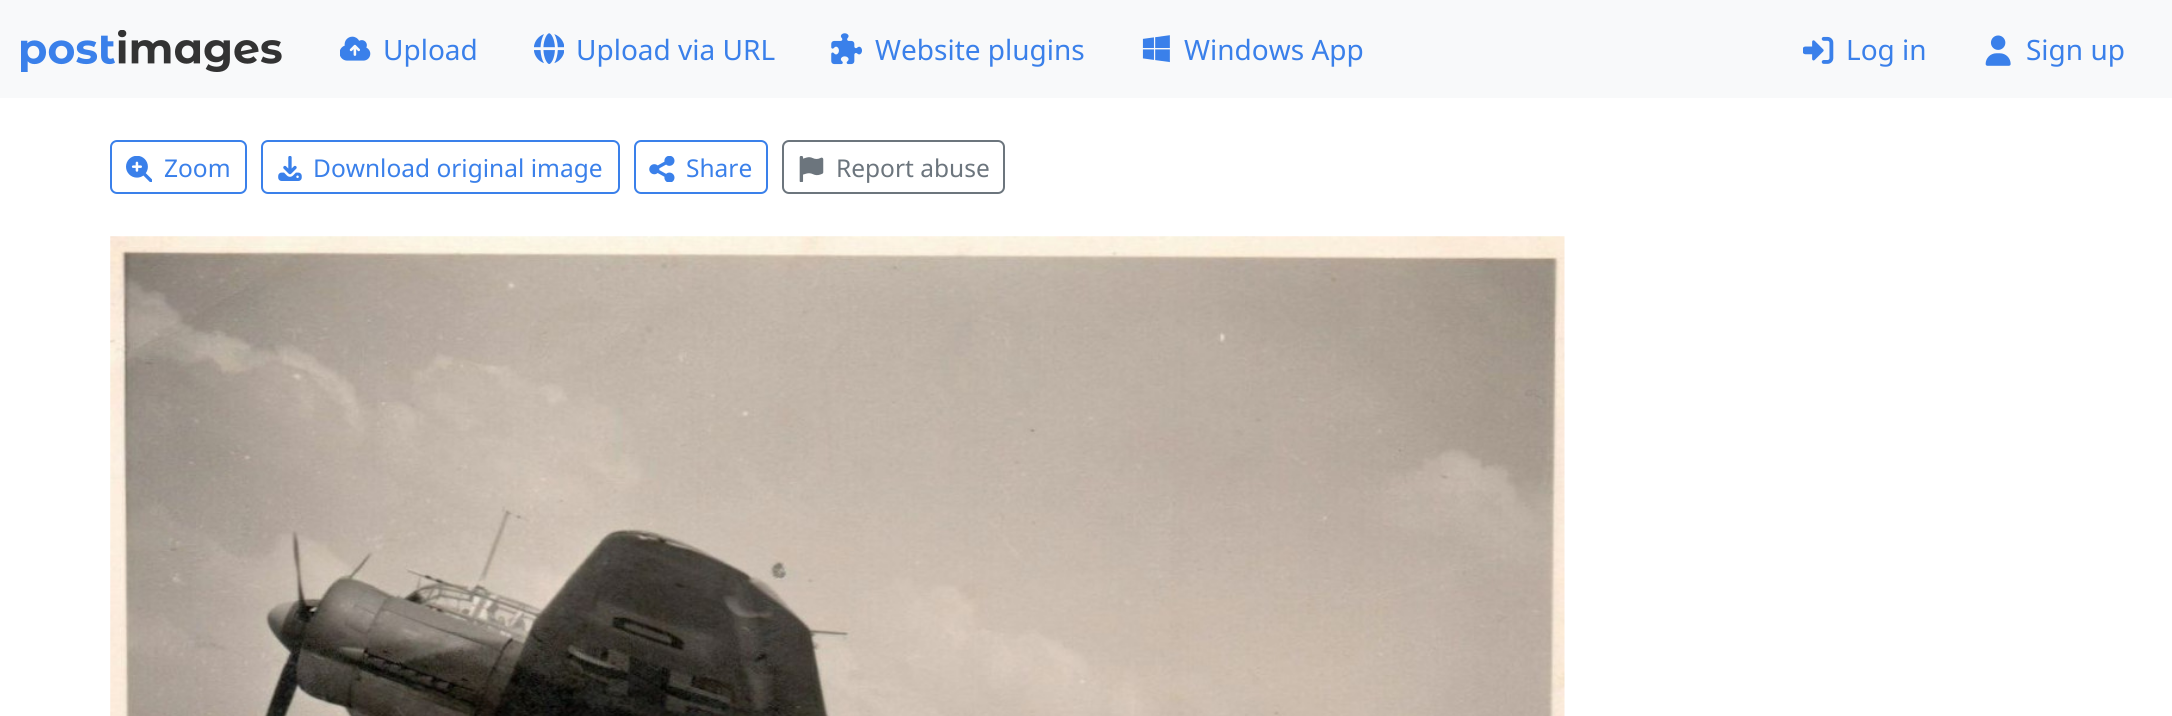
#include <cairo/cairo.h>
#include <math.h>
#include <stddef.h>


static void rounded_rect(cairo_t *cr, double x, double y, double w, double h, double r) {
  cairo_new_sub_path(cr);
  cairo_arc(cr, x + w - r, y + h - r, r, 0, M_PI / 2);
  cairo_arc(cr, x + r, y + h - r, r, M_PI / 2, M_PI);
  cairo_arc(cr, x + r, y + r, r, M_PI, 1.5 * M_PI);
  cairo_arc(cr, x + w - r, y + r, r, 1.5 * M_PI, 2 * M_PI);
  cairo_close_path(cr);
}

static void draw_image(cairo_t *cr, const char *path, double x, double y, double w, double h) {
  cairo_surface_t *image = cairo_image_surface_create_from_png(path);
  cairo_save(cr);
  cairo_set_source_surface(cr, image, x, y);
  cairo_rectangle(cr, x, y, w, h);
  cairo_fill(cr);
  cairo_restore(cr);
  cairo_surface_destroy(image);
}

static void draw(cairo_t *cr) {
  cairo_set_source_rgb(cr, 1, 1, 1);
  cairo_paint(cr);
  cairo_set_source_rgb(cr, 248 / 255.0, 249 / 255.0, 250 / 255.0);
  cairo_rectangle(cr, 0, 0, 2172, 98);
  cairo_fill(cr);
  draw_image(cr, "images/1.png", 21, 30, 261, 42);
  draw_image(cr, "images/2.png", 340, 36, 31, 25);
  draw_image(cr, "images/3.png", 534, 33, 30, 31);
  draw_image(cr, "images/4.png", 831, 33, 31, 32);
  draw_image(cr, "images/5.png", 1142, 35, 28, 28);
  draw_image(cr, "images/6.png", 1803, 36, 31, 28);
  draw_image(cr, "images/7.png", 1985, 35, 26, 31);
  rounded_rect(cr, 111, 141, 135, 52, 6);
  cairo_set_source_rgb(cr, 58 / 255.0, 128 / 255.0, 234 / 255.0);
  cairo_stroke(cr);
  draw_image(cr, "images/8.png", 126, 156, 26, 26);
  rounded_rect(cr, 262, 141, 357, 52, 6);
  cairo_stroke(cr);
  draw_image(cr, "images/9.png", 278, 156, 24, 25);
  rounded_rect(cr, 635, 141, 132, 52, 6);
  cairo_stroke(cr);
  draw_image(cr, "images/10.png", 649, 156, 26, 26);
  rounded_rect(cr, 783, 141, 221, 52, 6);
  cairo_set_source_rgb(cr, 108 / 255.0, 117 / 255.0, 125 / 255.0);
  cairo_stroke(cr);
  draw_image(cr, "images/11.png", 799, 156, 25, 26);
  draw_image(cr, "images/12.png", 110, 236, 1455, 480);
  cairo_select_font_face(cr, "Noto Sans", CAIRO_FONT_SLANT_NORMAL, CAIRO_FONT_WEIGHT_NORMAL);
  cairo_set_font_size(cr, 28);
  cairo_set_source_rgb(cr, 58 / 255.0, 128 / 255.0, 234 / 255.0);
  cairo_move_to(cr, 383, 60);
  cairo_show_text(cr, "Upload");
  cairo_move_to(cr, 576, 60);
  cairo_show_text(cr, "Upload via URL");
  cairo_move_to(cr, 875, 60);
  cairo_show_text(cr, "Website plugins");
  cairo_move_to(cr, 1184, 60);
  cairo_show_text(cr, "Windows App");
  cairo_move_to(cr, 1846, 60);
  cairo_show_text(cr, "Log in");
  cairo_move_to(cr, 2026, 60);
  cairo_show_text(cr, "Sign up");
  cairo_set_font_size(cr, 24.5);
  cairo_move_to(cr, 164, 177);
  cairo_show_text(cr, "Zoom");
  cairo_move_to(cr, 313, 177);
  cairo_show_text(cr, "Download original image");
  cairo_move_to(cr, 686, 177);
  cairo_show_text(cr, "Share");
  cairo_set_source_rgb(cr, 108 / 255.0, 117 / 255.0, 125 / 255.0);
  cairo_move_to(cr, 836, 177);
  cairo_show_text(cr, "Report abuse");
}

int main(void) {
  cairo_surface_t *surface = cairo_image_surface_create(CAIRO_FORMAT_RGB24, 2172, 716);
  cairo_t *cr = cairo_create(surface);
  cairo_font_options_t *options = cairo_font_options_create();
  cairo_font_options_set_hint_metrics(options, CAIRO_HINT_METRICS_OFF);
  cairo_font_options_set_hint_style(options, CAIRO_HINT_STYLE_NONE);
  cairo_set_font_options(cr, options);
  cairo_set_miter_limit(cr, 4);
  draw(cr);
  cairo_surface_write_to_png(surface, "out.png");
  cairo_font_options_destroy(options);
  cairo_destroy(cr);
  cairo_surface_destroy(surface);
  return 0;
}
